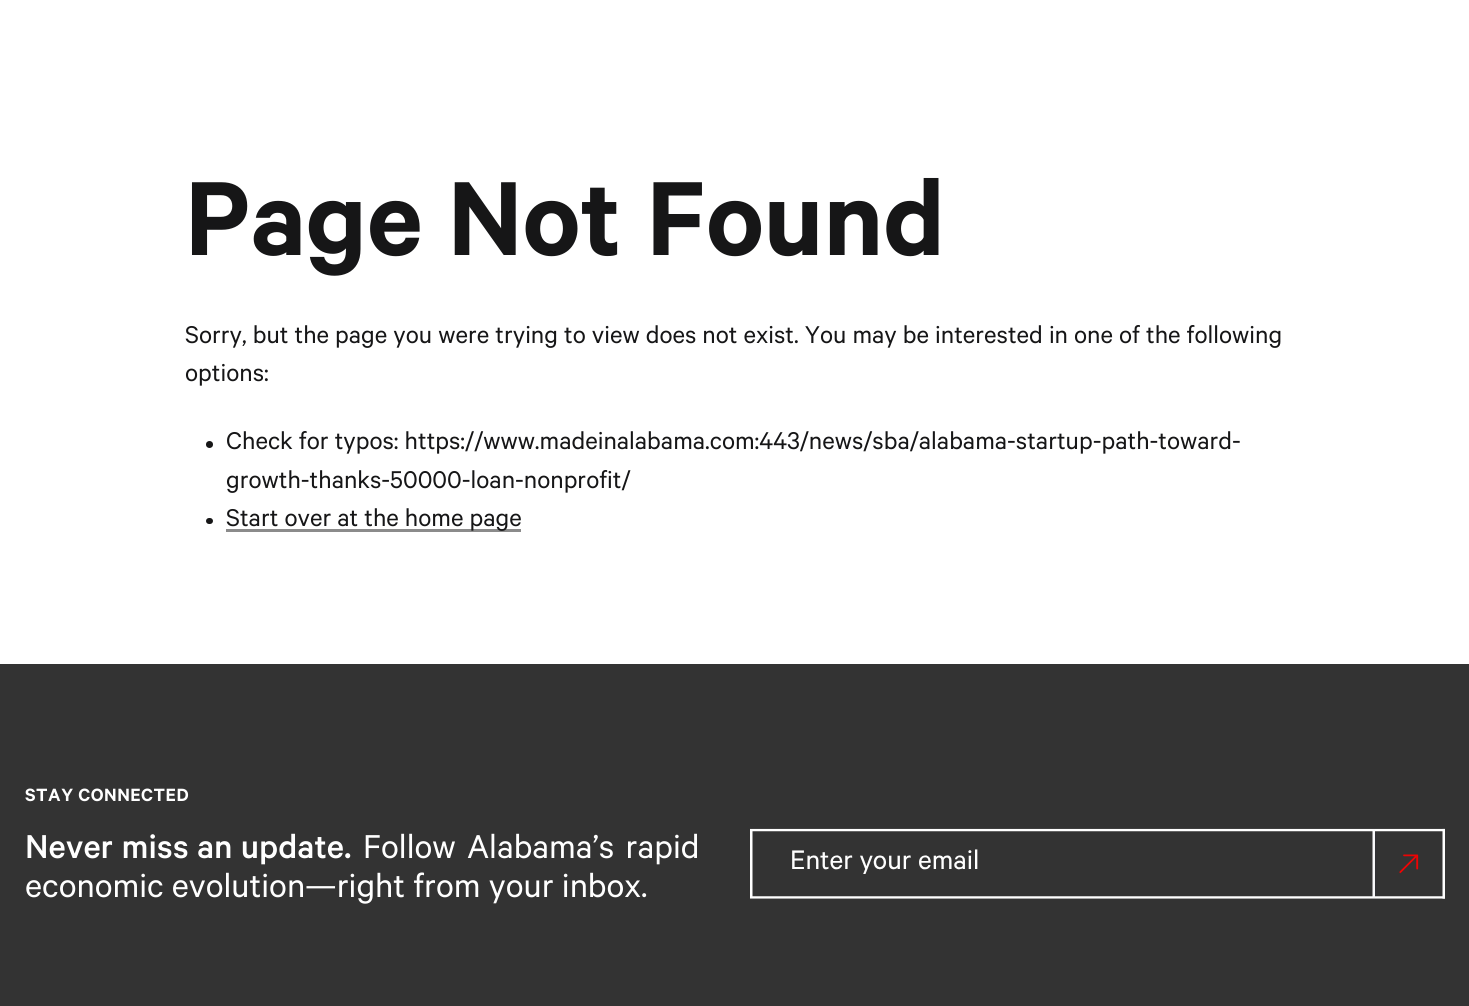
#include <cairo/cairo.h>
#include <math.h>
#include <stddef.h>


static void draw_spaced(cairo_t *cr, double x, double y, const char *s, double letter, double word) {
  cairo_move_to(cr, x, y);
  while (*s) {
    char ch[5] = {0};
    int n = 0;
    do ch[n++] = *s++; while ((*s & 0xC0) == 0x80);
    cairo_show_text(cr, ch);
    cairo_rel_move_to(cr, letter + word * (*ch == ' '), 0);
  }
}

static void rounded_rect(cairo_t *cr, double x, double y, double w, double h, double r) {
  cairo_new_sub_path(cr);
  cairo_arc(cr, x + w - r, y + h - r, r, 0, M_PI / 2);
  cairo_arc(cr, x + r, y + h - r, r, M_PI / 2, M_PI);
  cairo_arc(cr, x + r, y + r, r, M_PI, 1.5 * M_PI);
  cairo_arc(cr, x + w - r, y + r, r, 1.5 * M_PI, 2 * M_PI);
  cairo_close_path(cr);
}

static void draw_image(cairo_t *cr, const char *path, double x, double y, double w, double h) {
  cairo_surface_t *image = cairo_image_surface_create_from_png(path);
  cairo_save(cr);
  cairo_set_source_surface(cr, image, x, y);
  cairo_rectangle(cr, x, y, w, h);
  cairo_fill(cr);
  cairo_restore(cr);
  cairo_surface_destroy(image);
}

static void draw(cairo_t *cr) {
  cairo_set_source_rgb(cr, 1, 1, 1);
  cairo_paint(cr);
  cairo_set_source_rgb(cr, 22 / 255.0, 22 / 255.0, 23 / 255.0);
  cairo_arc(cr, 209.5, 444.5, 3.5, 0, 2 * M_PI);
  cairo_fill(cr);
  rounded_rect(cr, 206, 518, 7, 6, 3);
  cairo_fill(cr);
  cairo_set_source_rgb(cr, 139 / 255.0, 139 / 255.0, 139 / 255.0);
  cairo_rectangle(cr, 226, 529, 295, 3);
  cairo_fill(cr);
  cairo_set_source_rgb(cr, 51 / 255.0, 51 / 255.0, 51 / 255.0);
  cairo_rectangle(cr, 0, 664, 1469, 342);
  cairo_fill(cr);
  draw_image(cr, "images/1.png", 750, 828, 695, 71);
  cairo_select_font_face(cr, "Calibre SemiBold", CAIRO_FONT_SLANT_NORMAL, CAIRO_FONT_WEIGHT_NORMAL);
  cairo_set_font_size(cr, 118.5);
  cairo_set_source_rgb(cr, 22 / 255.0, 22 / 255.0, 23 / 255.0);
  cairo_move_to(cr, 185, 255);
  cairo_show_text(cr, "Page Not Found");
  cairo_select_font_face(cr, "Calibre", CAIRO_FONT_SLANT_NORMAL, CAIRO_FONT_WEIGHT_NORMAL);
  cairo_set_font_size(cr, 27.35);
  cairo_move_to(cr, 185, 343);
  cairo_show_text(cr, "Sorry, but the page you were trying to view does not exist. You may be interested in one of the following");
  cairo_move_to(cr, 185, 381);
  cairo_show_text(cr, "options:");
  cairo_move_to(cr, 226, 449);
  cairo_show_text(cr, "Check for typos: https://www.madeinalabama.com:443/news/sba/alabama-startup-path-toward-");
  cairo_move_to(cr, 226, 488);
  cairo_show_text(cr, "growth-thanks-50000-loan-nonprofit/");
  cairo_move_to(cr, 226, 526);
  cairo_show_text(cr, "Start over at the home page");
  cairo_select_font_face(cr, "Calibre SemiBold", CAIRO_FONT_SLANT_NORMAL, CAIRO_FONT_WEIGHT_NORMAL);
  cairo_set_font_size(cr, 20);
  cairo_set_source_rgb(cr, 1, 1, 1);
  draw_spaced(cr, 25, 801, "STAY CONNECTED", 0.5, 0);
  cairo_select_font_face(cr, "Calibre Medium", CAIRO_FONT_SLANT_NORMAL, CAIRO_FONT_WEIGHT_NORMAL);
  cairo_set_font_size(cr, 37.25);
  cairo_move_to(cr, 25, 858);
  cairo_show_text(cr, "Never miss an update.");
  cairo_select_font_face(cr, "Calibre", CAIRO_FONT_SLANT_NORMAL, CAIRO_FONT_WEIGHT_NORMAL);
  draw_spaced(cr, 363, 858, "Follow Alabama’s rapid", 0, 3);
  cairo_move_to(cr, 25, 897);
  cairo_show_text(cr, "economic evolution—right from your inbox.");
}

int main(void) {
  cairo_surface_t *surface = cairo_image_surface_create(CAIRO_FORMAT_RGB24, 1469, 1006);
  cairo_t *cr = cairo_create(surface);
  cairo_font_options_t *options = cairo_font_options_create();
  cairo_font_options_set_hint_metrics(options, CAIRO_HINT_METRICS_OFF);
  cairo_font_options_set_hint_style(options, CAIRO_HINT_STYLE_NONE);
  cairo_set_font_options(cr, options);
  cairo_set_miter_limit(cr, 4);
  draw(cr);
  cairo_surface_write_to_png(surface, "out.png");
  cairo_font_options_destroy(options);
  cairo_destroy(cr);
  cairo_surface_destroy(surface);
  return 0;
}
